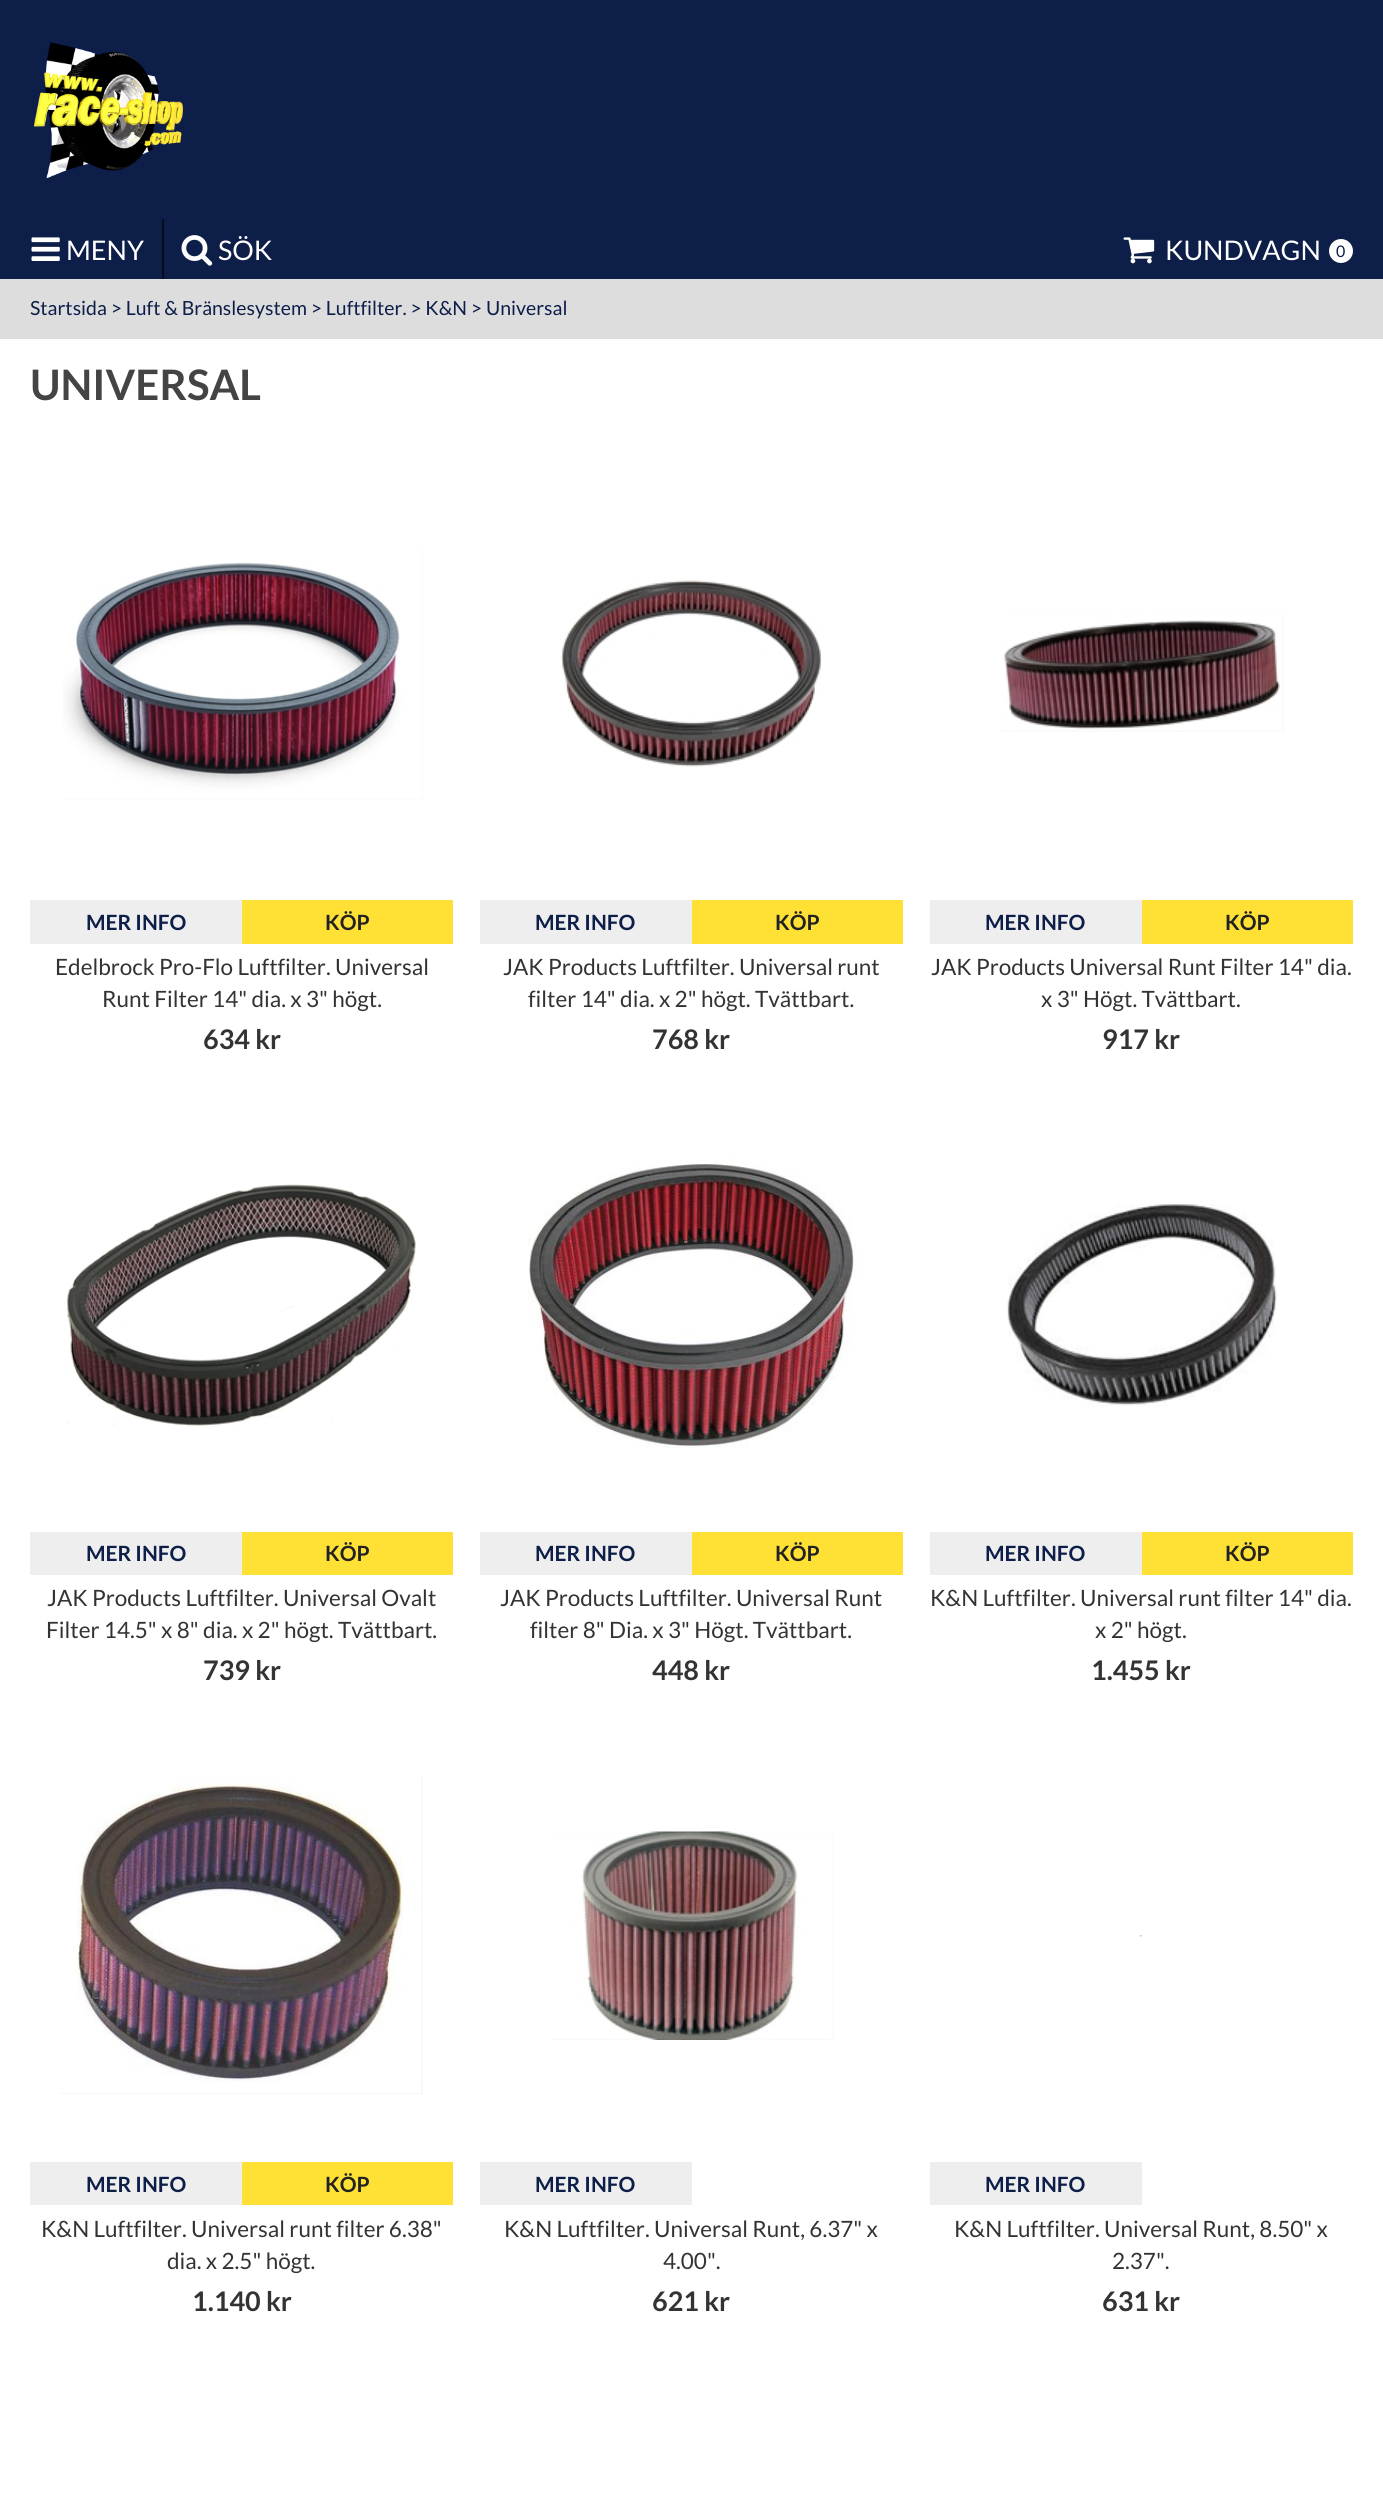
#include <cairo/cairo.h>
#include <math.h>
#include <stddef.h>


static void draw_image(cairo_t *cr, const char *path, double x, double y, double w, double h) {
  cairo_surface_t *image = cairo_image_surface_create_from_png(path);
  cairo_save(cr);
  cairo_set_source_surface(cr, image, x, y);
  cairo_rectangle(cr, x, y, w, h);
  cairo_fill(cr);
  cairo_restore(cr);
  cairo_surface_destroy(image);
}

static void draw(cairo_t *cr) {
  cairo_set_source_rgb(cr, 221 / 255.0, 221 / 255.0, 221 / 255.0);
  cairo_paint(cr);
  cairo_set_source_rgb(cr, 13 / 255.0, 30 / 255.0, 73 / 255.0);
  cairo_rectangle(cr, 0, 0, 1383, 279);
  cairo_fill(cr);
  draw_image(cr, "images/1.png", 33, 42, 150, 137);
  cairo_set_source_rgb(cr, 5 / 255.0, 12 / 255.0, 30 / 255.0);
  cairo_rectangle(cr, 162, 219, 2, 60);
  cairo_fill(cr);
  draw_image(cr, "images/2.png", 31, 237, 29, 24);
  draw_image(cr, "images/3.png", 181, 235, 32, 31);
  draw_image(cr, "images/4.png", 1123, 237, 32, 27);
  cairo_set_source_rgb(cr, 1, 1, 1);
  cairo_arc(cr, 1341, 251, 12, 0, 2 * M_PI);
  cairo_fill(cr);
  cairo_rectangle(cr, 0, 339, 1383, 2162);
  cairo_fill(cr);
  draw_image(cr, "images/5.png", 63, 548, 360, 252);
  cairo_set_source_rgb(cr, 238 / 255.0, 238 / 255.0, 238 / 255.0);
  cairo_rectangle(cr, 30, 900, 212, 44);
  cairo_fill(cr);
  cairo_set_source_rgb(cr, 1, 225 / 255.0, 54 / 255.0);
  cairo_rectangle(cr, 242, 900, 211, 44);
  cairo_fill(cr);
  draw_image(cr, "images/6.png", 561, 580, 261, 187);
  cairo_set_source_rgb(cr, 238 / 255.0, 238 / 255.0, 238 / 255.0);
  cairo_rectangle(cr, 480, 900, 212, 44);
  cairo_fill(cr);
  cairo_set_source_rgb(cr, 1, 225 / 255.0, 54 / 255.0);
  cairo_rectangle(cr, 692, 900, 211, 44);
  cairo_fill(cr);
  draw_image(cr, "images/7.png", 1001, 614, 283, 118);
  cairo_set_source_rgb(cr, 238 / 255.0, 238 / 255.0, 238 / 255.0);
  cairo_rectangle(cr, 930, 900, 212, 44);
  cairo_fill(cr);
  cairo_set_source_rgb(cr, 1, 225 / 255.0, 54 / 255.0);
  cairo_rectangle(cr, 1142, 900, 211, 44);
  cairo_fill(cr);
  draw_image(cr, "images/8.png", 64, 1184, 352, 243);
  cairo_set_source_rgb(cr, 238 / 255.0, 238 / 255.0, 238 / 255.0);
  cairo_rectangle(cr, 30, 1532, 212, 43);
  cairo_fill(cr);
  cairo_set_source_rgb(cr, 1, 225 / 255.0, 54 / 255.0);
  cairo_rectangle(cr, 242, 1532, 211, 43);
  cairo_fill(cr);
  draw_image(cr, "images/9.png", 528, 1159, 331, 289);
  cairo_set_source_rgb(cr, 238 / 255.0, 238 / 255.0, 238 / 255.0);
  cairo_rectangle(cr, 480, 1532, 212, 43);
  cairo_fill(cr);
  cairo_set_source_rgb(cr, 1, 225 / 255.0, 54 / 255.0);
  cairo_rectangle(cr, 692, 1532, 211, 43);
  cairo_fill(cr);
  draw_image(cr, "images/10.png", 1007, 1204, 270, 203);
  cairo_set_source_rgb(cr, 238 / 255.0, 238 / 255.0, 238 / 255.0);
  cairo_rectangle(cr, 930, 1532, 212, 43);
  cairo_fill(cr);
  cairo_set_source_rgb(cr, 1, 225 / 255.0, 54 / 255.0);
  cairo_rectangle(cr, 1142, 1532, 211, 43);
  cairo_fill(cr);
  draw_image(cr, "images/11.png", 60, 1776, 363, 318);
  cairo_set_source_rgb(cr, 238 / 255.0, 238 / 255.0, 238 / 255.0);
  cairo_rectangle(cr, 30, 2162, 212, 43);
  cairo_fill(cr);
  cairo_set_source_rgb(cr, 1, 225 / 255.0, 54 / 255.0);
  cairo_rectangle(cr, 242, 2162, 211, 43);
  cairo_fill(cr);
  draw_image(cr, "images/12.png", 552, 1831, 282, 209);
  cairo_set_source_rgb(cr, 238 / 255.0, 238 / 255.0, 238 / 255.0);
  cairo_rectangle(cr, 480, 2162, 212, 43);
  cairo_fill(cr);
  draw_image(cr, "images/13.png", 1140, 1935, 2, 2);
  cairo_rectangle(cr, 930, 2162, 212, 43);
  cairo_fill(cr);
  cairo_select_font_face(cr, "Lato", CAIRO_FONT_SLANT_NORMAL, CAIRO_FONT_WEIGHT_NORMAL);
  cairo_set_font_size(cr, 27);
  cairo_set_source_rgb(cr, 1, 1, 1);
  cairo_move_to(cr, 66, 260);
  cairo_show_text(cr, "MENY");
  cairo_move_to(cr, 218, 260);
  cairo_show_text(cr, "SÖK");
  cairo_move_to(cr, 1165, 260);
  cairo_show_text(cr, "KUNDVAGN");
  cairo_set_font_size(cr, 16);
  cairo_set_source_rgb(cr, 13 / 255.0, 30 / 255.0, 73 / 255.0);
  cairo_move_to(cr, 1336, 257);
  cairo_show_text(cr, "0");
  cairo_set_font_size(cr, 19.5);
  cairo_move_to(cr, 30, 315);
  cairo_show_text(cr, "Startsida > Luft & Bränslesystem > Luftfilter. > K&N > Universal");
  cairo_select_font_face(cr, "Lato", CAIRO_FONT_SLANT_NORMAL, CAIRO_FONT_WEIGHT_BOLD);
  cairo_set_font_size(cr, 42);
  cairo_set_source_rgb(cr, 68 / 255.0, 68 / 255.0, 68 / 255.0);
  cairo_move_to(cr, 30, 400);
  cairo_show_text(cr, "UNIVERSAL");
  cairo_set_font_size(cr, 21);
  cairo_set_source_rgb(cr, 13 / 255.0, 30 / 255.0, 73 / 255.0);
  cairo_move_to(cr, 86, 930);
  cairo_show_text(cr, "MER INFO");
  cairo_set_source_rgb(cr, 34 / 255.0, 34 / 255.0, 34 / 255.0);
  cairo_move_to(cr, 325, 930);
  cairo_show_text(cr, "KÖP");
  cairo_select_font_face(cr, "Lato", CAIRO_FONT_SLANT_NORMAL, CAIRO_FONT_WEIGHT_NORMAL);
  cairo_set_font_size(cr, 22.5);
  cairo_set_source_rgb(cr, 51 / 255.0, 51 / 255.0, 51 / 255.0);
  cairo_move_to(cr, 55, 975);
  cairo_show_text(cr, "Edelbrock Pro-Flo Luftfilter. Universal");
  cairo_move_to(cr, 102, 1007);
  cairo_show_text(cr, "Runt Filter 14\" dia. x 3\" högt.");
  cairo_select_font_face(cr, "Lato", CAIRO_FONT_SLANT_NORMAL, CAIRO_FONT_WEIGHT_BOLD);
  cairo_set_font_size(cr, 27);
  cairo_move_to(cr, 203, 1049);
  cairo_show_text(cr, "634 kr");
  cairo_set_font_size(cr, 21);
  cairo_set_source_rgb(cr, 13 / 255.0, 30 / 255.0, 73 / 255.0);
  cairo_move_to(cr, 535, 930);
  cairo_show_text(cr, "MER INFO");
  cairo_set_source_rgb(cr, 34 / 255.0, 34 / 255.0, 34 / 255.0);
  cairo_move_to(cr, 775, 930);
  cairo_show_text(cr, "KÖP");
  cairo_select_font_face(cr, "Lato", CAIRO_FONT_SLANT_NORMAL, CAIRO_FONT_WEIGHT_NORMAL);
  cairo_set_font_size(cr, 22.5);
  cairo_set_source_rgb(cr, 51 / 255.0, 51 / 255.0, 51 / 255.0);
  cairo_move_to(cr, 503, 975);
  cairo_show_text(cr, "JAK Products Luftfilter. Universal runt");
  cairo_move_to(cr, 528, 1007);
  cairo_show_text(cr, "filter 14\" dia. x 2\" högt. Tvättbart.");
  cairo_select_font_face(cr, "Lato", CAIRO_FONT_SLANT_NORMAL, CAIRO_FONT_WEIGHT_BOLD);
  cairo_set_font_size(cr, 27);
  cairo_move_to(cr, 652, 1049);
  cairo_show_text(cr, "768 kr");
  cairo_set_font_size(cr, 21);
  cairo_set_source_rgb(cr, 13 / 255.0, 30 / 255.0, 73 / 255.0);
  cairo_move_to(cr, 985, 930);
  cairo_show_text(cr, "MER INFO");
  cairo_set_source_rgb(cr, 34 / 255.0, 34 / 255.0, 34 / 255.0);
  cairo_move_to(cr, 1225, 930);
  cairo_show_text(cr, "KÖP");
  cairo_select_font_face(cr, "Lato", CAIRO_FONT_SLANT_NORMAL, CAIRO_FONT_WEIGHT_NORMAL);
  cairo_set_font_size(cr, 22.5);
  cairo_set_source_rgb(cr, 51 / 255.0, 51 / 255.0, 51 / 255.0);
  cairo_move_to(cr, 931, 975);
  cairo_show_text(cr, "JAK Products Universal Runt Filter 14\" dia.");
  cairo_move_to(cr, 1041, 1007);
  cairo_show_text(cr, "x 3\" Högt. Tvättbart.");
  cairo_select_font_face(cr, "Lato", CAIRO_FONT_SLANT_NORMAL, CAIRO_FONT_WEIGHT_BOLD);
  cairo_set_font_size(cr, 27);
  cairo_move_to(cr, 1102, 1049);
  cairo_show_text(cr, "917 kr");
  cairo_set_font_size(cr, 21);
  cairo_set_source_rgb(cr, 13 / 255.0, 30 / 255.0, 73 / 255.0);
  cairo_move_to(cr, 86, 1561);
  cairo_show_text(cr, "MER INFO");
  cairo_set_source_rgb(cr, 34 / 255.0, 34 / 255.0, 34 / 255.0);
  cairo_move_to(cr, 325, 1561);
  cairo_show_text(cr, "KÖP");
  cairo_select_font_face(cr, "Lato", CAIRO_FONT_SLANT_NORMAL, CAIRO_FONT_WEIGHT_NORMAL);
  cairo_set_font_size(cr, 22.5);
  cairo_set_source_rgb(cr, 51 / 255.0, 51 / 255.0, 51 / 255.0);
  cairo_move_to(cr, 47, 1606);
  cairo_show_text(cr, "JAK Products Luftfilter. Universal Ovalt");
  cairo_move_to(cr, 46, 1638);
  cairo_show_text(cr, "Filter 14.5\" x 8\" dia. x 2\" högt. Tvättbart.");
  cairo_select_font_face(cr, "Lato", CAIRO_FONT_SLANT_NORMAL, CAIRO_FONT_WEIGHT_BOLD);
  cairo_set_font_size(cr, 27);
  cairo_move_to(cr, 203, 1680);
  cairo_show_text(cr, "739 kr");
  cairo_set_font_size(cr, 21);
  cairo_set_source_rgb(cr, 13 / 255.0, 30 / 255.0, 73 / 255.0);
  cairo_move_to(cr, 535, 1561);
  cairo_show_text(cr, "MER INFO");
  cairo_set_source_rgb(cr, 34 / 255.0, 34 / 255.0, 34 / 255.0);
  cairo_move_to(cr, 775, 1561);
  cairo_show_text(cr, "KÖP");
  cairo_select_font_face(cr, "Lato", CAIRO_FONT_SLANT_NORMAL, CAIRO_FONT_WEIGHT_NORMAL);
  cairo_set_font_size(cr, 22.5);
  cairo_set_source_rgb(cr, 51 / 255.0, 51 / 255.0, 51 / 255.0);
  cairo_move_to(cr, 500, 1606);
  cairo_show_text(cr, "JAK Products Luftfilter. Universal Runt");
  cairo_move_to(cr, 530, 1638);
  cairo_show_text(cr, "filter 8\" Dia. x 3\" Högt. Tvättbart.");
  cairo_select_font_face(cr, "Lato", CAIRO_FONT_SLANT_NORMAL, CAIRO_FONT_WEIGHT_BOLD);
  cairo_set_font_size(cr, 27);
  cairo_move_to(cr, 652, 1680);
  cairo_show_text(cr, "448 kr");
  cairo_set_font_size(cr, 21);
  cairo_set_source_rgb(cr, 13 / 255.0, 30 / 255.0, 73 / 255.0);
  cairo_move_to(cr, 985, 1561);
  cairo_show_text(cr, "MER INFO");
  cairo_set_source_rgb(cr, 34 / 255.0, 34 / 255.0, 34 / 255.0);
  cairo_move_to(cr, 1225, 1561);
  cairo_show_text(cr, "KÖP");
  cairo_select_font_face(cr, "Lato", CAIRO_FONT_SLANT_NORMAL, CAIRO_FONT_WEIGHT_NORMAL);
  cairo_set_font_size(cr, 22.5);
  cairo_set_source_rgb(cr, 51 / 255.0, 51 / 255.0, 51 / 255.0);
  cairo_move_to(cr, 930, 1606);
  cairo_show_text(cr, "K&N Luftfilter. Universal runt filter 14\" dia.");
  cairo_move_to(cr, 1095, 1638);
  cairo_show_text(cr, "x 2\" högt.");
  cairo_select_font_face(cr, "Lato", CAIRO_FONT_SLANT_NORMAL, CAIRO_FONT_WEIGHT_BOLD);
  cairo_set_font_size(cr, 27);
  cairo_move_to(cr, 1091, 1680);
  cairo_show_text(cr, "1.455 kr");
  cairo_set_font_size(cr, 21);
  cairo_set_source_rgb(cr, 13 / 255.0, 30 / 255.0, 73 / 255.0);
  cairo_move_to(cr, 86, 2192);
  cairo_show_text(cr, "MER INFO");
  cairo_set_source_rgb(cr, 34 / 255.0, 34 / 255.0, 34 / 255.0);
  cairo_move_to(cr, 325, 2192);
  cairo_show_text(cr, "KÖP");
  cairo_select_font_face(cr, "Lato", CAIRO_FONT_SLANT_NORMAL, CAIRO_FONT_WEIGHT_NORMAL);
  cairo_set_font_size(cr, 22.5);
  cairo_set_source_rgb(cr, 51 / 255.0, 51 / 255.0, 51 / 255.0);
  cairo_move_to(cr, 41, 2237);
  cairo_show_text(cr, "K&N Luftfilter. Universal runt filter 6.38\"");
  cairo_move_to(cr, 167, 2269);
  cairo_show_text(cr, "dia. x 2.5\" högt.");
  cairo_select_font_face(cr, "Lato", CAIRO_FONT_SLANT_NORMAL, CAIRO_FONT_WEIGHT_BOLD);
  cairo_set_font_size(cr, 27);
  cairo_move_to(cr, 192, 2311);
  cairo_show_text(cr, "1.140 kr");
  cairo_set_font_size(cr, 21);
  cairo_set_source_rgb(cr, 13 / 255.0, 30 / 255.0, 73 / 255.0);
  cairo_move_to(cr, 535, 2192);
  cairo_show_text(cr, "MER INFO");
  cairo_select_font_face(cr, "Lato", CAIRO_FONT_SLANT_NORMAL, CAIRO_FONT_WEIGHT_NORMAL);
  cairo_set_font_size(cr, 22.5);
  cairo_set_source_rgb(cr, 51 / 255.0, 51 / 255.0, 51 / 255.0);
  cairo_move_to(cr, 504, 2237);
  cairo_show_text(cr, "K&N Luftfilter. Universal Runt, 6.37\" x");
  cairo_move_to(cr, 663, 2269);
  cairo_show_text(cr, "4.00\".");
  cairo_select_font_face(cr, "Lato", CAIRO_FONT_SLANT_NORMAL, CAIRO_FONT_WEIGHT_BOLD);
  cairo_set_font_size(cr, 27);
  cairo_move_to(cr, 652, 2311);
  cairo_show_text(cr, "621 kr");
  cairo_set_font_size(cr, 21);
  cairo_set_source_rgb(cr, 13 / 255.0, 30 / 255.0, 73 / 255.0);
  cairo_move_to(cr, 985, 2192);
  cairo_show_text(cr, "MER INFO");
  cairo_select_font_face(cr, "Lato", CAIRO_FONT_SLANT_NORMAL, CAIRO_FONT_WEIGHT_NORMAL);
  cairo_set_font_size(cr, 22.5);
  cairo_set_source_rgb(cr, 51 / 255.0, 51 / 255.0, 51 / 255.0);
  cairo_move_to(cr, 954, 2237);
  cairo_show_text(cr, "K&N Luftfilter. Universal Runt, 8.50\" x");
  cairo_move_to(cr, 1112, 2269);
  cairo_show_text(cr, "2.37\".");
  cairo_select_font_face(cr, "Lato", CAIRO_FONT_SLANT_NORMAL, CAIRO_FONT_WEIGHT_BOLD);
  cairo_set_font_size(cr, 27);
  cairo_move_to(cr, 1102, 2311);
  cairo_show_text(cr, "631 kr");
}

int main(void) {
  cairo_surface_t *surface = cairo_image_surface_create(CAIRO_FORMAT_RGB24, 1383, 2501);
  cairo_t *cr = cairo_create(surface);
  cairo_font_options_t *options = cairo_font_options_create();
  cairo_font_options_set_hint_metrics(options, CAIRO_HINT_METRICS_OFF);
  cairo_font_options_set_hint_style(options, CAIRO_HINT_STYLE_NONE);
  cairo_set_font_options(cr, options);
  cairo_set_miter_limit(cr, 4);
  draw(cr);
  cairo_surface_write_to_png(surface, "out.png");
  cairo_font_options_destroy(options);
  cairo_destroy(cr);
  cairo_surface_destroy(surface);
  return 0;
}
